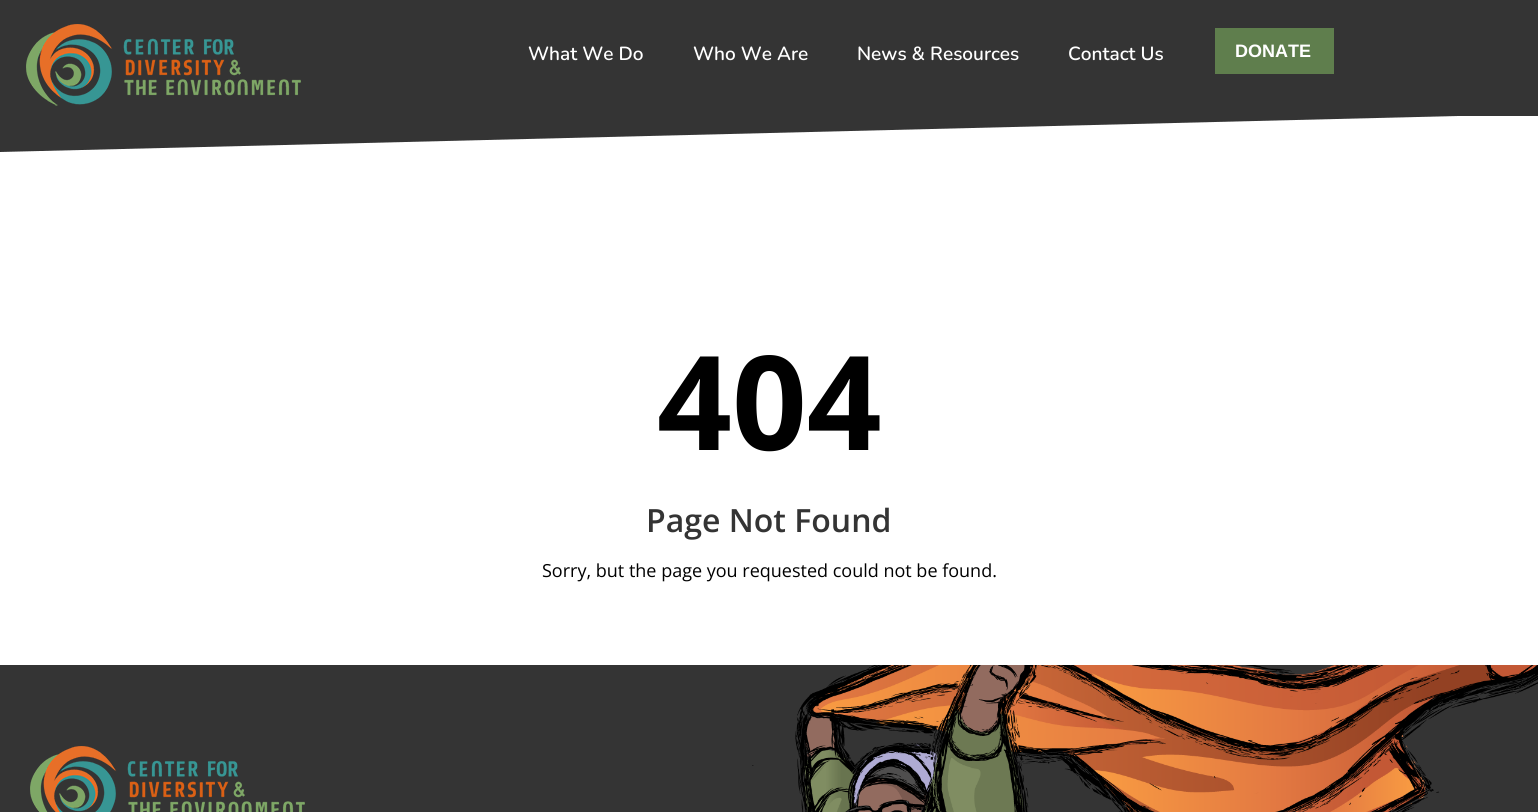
#include <cairo/cairo.h>
#include <math.h>
#include <stddef.h>


static void draw_image(cairo_t *cr, const char *path, double x, double y, double w, double h) {
  cairo_surface_t *image = cairo_image_surface_create_from_png(path);
  cairo_save(cr);
  cairo_set_source_surface(cr, image, x, y);
  cairo_rectangle(cr, x, y, w, h);
  cairo_fill(cr);
  cairo_restore(cr);
  cairo_surface_destroy(image);
}

static void draw(cairo_t *cr) {
  cairo_set_source_rgb(cr, 1, 1, 1);
  cairo_paint(cr);
  cairo_set_source_rgb(cr, 52 / 255.0, 52 / 255.0, 52 / 255.0);
  cairo_new_path(cr);
  cairo_move_to(cr, 0, 110);
  cairo_line_to(cr, 0, 152);
  cairo_line_to(cr, 1538, 114);
  cairo_line_to(cr, 1538, 110);
  cairo_close_path(cr);
  cairo_fill(cr);
  cairo_rectangle(cr, 0, 0, 1538, 116);
  cairo_fill(cr);
  draw_image(cr, "images/1.png", 26, 24, 275, 82);
  cairo_set_source_rgb(cr, 95 / 255.0, 126 / 255.0, 77 / 255.0);
  cairo_rectangle(cr, 1215, 28, 119, 46);
  cairo_fill(cr);
  cairo_set_source_rgb(cr, 52 / 255.0, 52 / 255.0, 52 / 255.0);
  cairo_rectangle(cr, 0, 665, 1538, 147);
  cairo_fill(cr);
  draw_image(cr, "images/2.png", 752, 665, 786, 147);
  draw_image(cr, "images/3.png", 30, 746, 275, 66);
  cairo_select_font_face(cr, "Nunito SemiBold", CAIRO_FONT_SLANT_NORMAL, CAIRO_FONT_WEIGHT_NORMAL);
  cairo_set_font_size(cr, 19);
  cairo_set_source_rgb(cr, 1, 1, 1);
  cairo_move_to(cr, 528, 60);
  cairo_show_text(cr, "What We Do");
  cairo_move_to(cr, 693, 60);
  cairo_show_text(cr, "Who We Are");
  cairo_move_to(cr, 857, 60);
  cairo_show_text(cr, "News & Resources");
  cairo_move_to(cr, 1068, 60);
  cairo_show_text(cr, "Contact Us");
  cairo_select_font_face(cr, "Liberation Sans", CAIRO_FONT_SLANT_NORMAL, CAIRO_FONT_WEIGHT_BOLD);
  cairo_set_font_size(cr, 18);
  cairo_move_to(cr, 1235, 57);
  cairo_show_text(cr, "DONATE");
  cairo_select_font_face(cr, "Open Sans", CAIRO_FONT_SLANT_NORMAL, CAIRO_FONT_WEIGHT_BOLD);
  cairo_set_font_size(cr, 131);
  cairo_set_source_rgb(cr, 0, 0, 0);
  cairo_move_to(cr, 657, 450);
  cairo_show_text(cr, "404");
  cairo_select_font_face(cr, "Open Sans SemiBold", CAIRO_FONT_SLANT_NORMAL, CAIRO_FONT_WEIGHT_NORMAL);
  cairo_set_font_size(cr, 32);
  cairo_set_source_rgb(cr, 52 / 255.0, 52 / 255.0, 52 / 255.0);
  cairo_move_to(cr, 646, 532);
  cairo_show_text(cr, "Page Not Found");
  cairo_select_font_face(cr, "Open Sans", CAIRO_FONT_SLANT_NORMAL, CAIRO_FONT_WEIGHT_NORMAL);
  cairo_set_font_size(cr, 18);
  cairo_set_source_rgb(cr, 0, 0, 0);
  cairo_move_to(cr, 542, 577);
  cairo_show_text(cr, "Sorry, but the page you requested could not be found.");
}

int main(void) {
  cairo_surface_t *surface = cairo_image_surface_create(CAIRO_FORMAT_RGB24, 1538, 812);
  cairo_t *cr = cairo_create(surface);
  cairo_font_options_t *options = cairo_font_options_create();
  cairo_font_options_set_hint_metrics(options, CAIRO_HINT_METRICS_OFF);
  cairo_font_options_set_hint_style(options, CAIRO_HINT_STYLE_NONE);
  cairo_set_font_options(cr, options);
  cairo_set_miter_limit(cr, 4);
  draw(cr);
  cairo_surface_write_to_png(surface, "out.png");
  cairo_font_options_destroy(options);
  cairo_destroy(cr);
  cairo_surface_destroy(surface);
  return 0;
}
